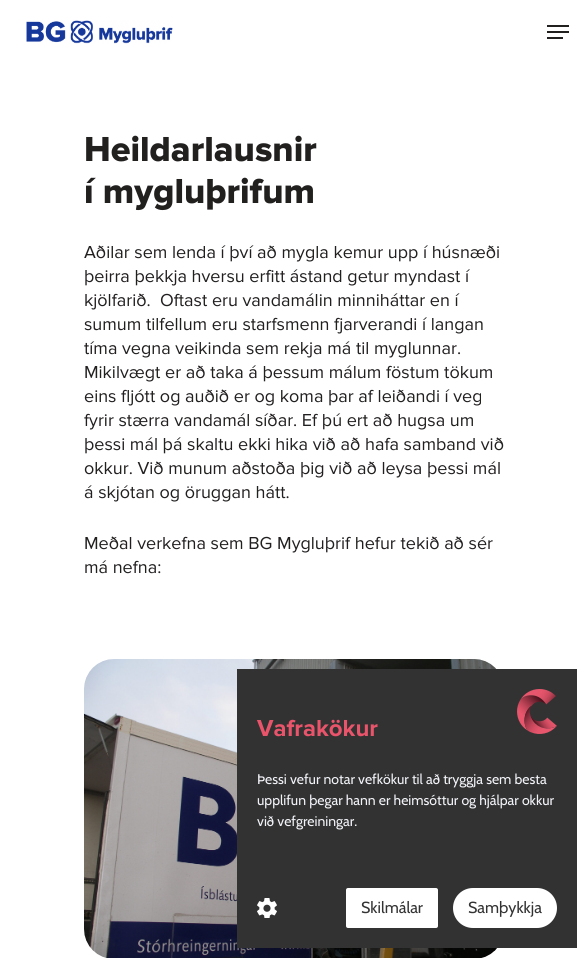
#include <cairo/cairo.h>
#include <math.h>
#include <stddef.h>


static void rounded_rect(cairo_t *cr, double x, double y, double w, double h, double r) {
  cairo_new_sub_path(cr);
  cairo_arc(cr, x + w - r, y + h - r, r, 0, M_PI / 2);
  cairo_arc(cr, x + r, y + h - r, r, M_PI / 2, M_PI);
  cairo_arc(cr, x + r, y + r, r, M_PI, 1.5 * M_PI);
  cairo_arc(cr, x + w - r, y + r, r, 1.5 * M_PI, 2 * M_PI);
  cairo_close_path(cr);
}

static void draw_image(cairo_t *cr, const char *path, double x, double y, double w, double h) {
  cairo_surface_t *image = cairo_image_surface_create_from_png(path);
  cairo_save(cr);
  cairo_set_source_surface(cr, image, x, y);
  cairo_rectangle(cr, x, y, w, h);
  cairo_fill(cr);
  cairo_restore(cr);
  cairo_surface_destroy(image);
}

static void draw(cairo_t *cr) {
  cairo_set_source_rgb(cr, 1, 1, 1);
  cairo_paint(cr);
  draw_image(cr, "images/1.png", 26, 20, 147, 24);
  cairo_set_source_rgb(cr, 34 / 255.0, 31 / 255.0, 31 / 255.0);
  cairo_rectangle(cr, 547, 25, 22, 2);
  cairo_fill(cr);
  cairo_rectangle(cr, 547, 37, 16, 2);
  cairo_fill(cr);
  cairo_rectangle(cr, 547, 31, 22, 2);
  cairo_fill(cr);
  draw_image(cr, "images/2.png", 84, 659, 413, 299);
  cairo_set_source_rgb(cr, 50 / 255.0, 50 / 255.0, 50 / 255.0);
  cairo_rectangle(cr, 237, 669, 340, 279);
  cairo_fill(cr);
  draw_image(cr, "images/3.png", 517, 689, 40, 45);
  draw_image(cr, "images/4.png", 257, 898, 20, 20);
  cairo_set_source_rgb(cr, 1, 1, 1);
  rounded_rect(cr, 346, 888, 92, 40, 2);
  cairo_fill(cr);
  rounded_rect(cr, 453, 888, 104, 40, 20);
  cairo_fill(cr);
  cairo_select_font_face(cr, "Proxima Nova ExtraBold", CAIRO_FONT_SLANT_NORMAL, CAIRO_FONT_WEIGHT_NORMAL);
  cairo_set_font_size(cr, 36);
  cairo_set_source_rgb(cr, 34 / 255.0, 31 / 255.0, 31 / 255.0);
  cairo_move_to(cr, 84, 161);
  cairo_show_text(cr, "Heildarlausnir");
  cairo_move_to(cr, 84, 203);
  cairo_show_text(cr, "í mygluþrifum");
  cairo_select_font_face(cr, "Proxima Nova", CAIRO_FONT_SLANT_NORMAL, CAIRO_FONT_WEIGHT_NORMAL);
  cairo_set_font_size(cr, 18);
  cairo_move_to(cr, 84, 258);
  cairo_show_text(cr, "Aðilar sem lenda í því að mygla kemur upp í húsnæði");
  cairo_move_to(cr, 84, 282);
  cairo_show_text(cr, "þeirra þekkja hversu erfitt ástand getur myndast í");
  cairo_move_to(cr, 84, 306);
  cairo_show_text(cr, "kjölfarið.  Oftast eru vandamálin minniháttar en í");
  cairo_move_to(cr, 84, 330);
  cairo_show_text(cr, "sumum tilfellum eru starfsmenn fjarverandi í langan");
  cairo_move_to(cr, 84, 354);
  cairo_show_text(cr, "tíma vegna veikinda sem rekja má til myglunnar.");
  cairo_move_to(cr, 84, 378);
  cairo_show_text(cr, "Mikilvægt er að taka á þessum málum föstum tökum");
  cairo_move_to(cr, 84, 402);
  cairo_show_text(cr, "eins fljótt og auðið er og koma þar af leiðandi í veg");
  cairo_move_to(cr, 84, 426);
  cairo_show_text(cr, "fyrir stærra vandamál síðar. Ef þú ert að hugsa um");
  cairo_move_to(cr, 84, 450);
  cairo_show_text(cr, "þessi mál þá skaltu ekki hika við að hafa samband við");
  cairo_move_to(cr, 84, 474);
  cairo_show_text(cr, "okkur. Við munum aðstoða þig við að leysa þessi mál");
  cairo_move_to(cr, 84, 498);
  cairo_show_text(cr, "á skjótan og öruggan hátt.");
  cairo_move_to(cr, 84, 549);
  cairo_show_text(cr, "Meðal verkefna sem BG Mygluþrif hefur tekið að sér");
  cairo_move_to(cr, 84, 573);
  cairo_show_text(cr, "má nefna:");
  cairo_select_font_face(cr, "Proxima Nova", CAIRO_FONT_SLANT_NORMAL, CAIRO_FONT_WEIGHT_BOLD);
  cairo_set_font_size(cr, 24);
  cairo_set_source_rgb(cr, 234 / 255.0, 84 / 255.0, 107 / 255.0);
  cairo_move_to(cr, 257, 736);
  cairo_show_text(cr, "Vafrakökur");
  cairo_select_font_face(cr, "Cabin", CAIRO_FONT_SLANT_NORMAL, CAIRO_FONT_WEIGHT_NORMAL);
  cairo_set_font_size(cr, 14);
  cairo_set_source_rgb(cr, 242 / 255.0, 243 / 255.0, 248 / 255.0);
  cairo_move_to(cr, 257, 784);
  cairo_show_text(cr, "Þessi vefur notar vefkökur til að tryggja sem besta");
  cairo_move_to(cr, 257, 805);
  cairo_show_text(cr, "upplifun þegar hann er heimsóttur og hjálpar okkur");
  cairo_move_to(cr, 257, 826);
  cairo_show_text(cr, "við vefgreiningar.");
  cairo_set_font_size(cr, 16);
  cairo_set_source_rgb(cr, 51 / 255.0, 51 / 255.0, 51 / 255.0);
  cairo_move_to(cr, 361, 913);
  cairo_show_text(cr, "Skilmálar");
  cairo_move_to(cr, 468, 913);
  cairo_show_text(cr, "Samþykkja");
}

int main(void) {
  cairo_surface_t *surface = cairo_image_surface_create(CAIRO_FORMAT_RGB24, 587, 958);
  cairo_t *cr = cairo_create(surface);
  cairo_font_options_t *options = cairo_font_options_create();
  cairo_font_options_set_hint_metrics(options, CAIRO_HINT_METRICS_OFF);
  cairo_font_options_set_hint_style(options, CAIRO_HINT_STYLE_NONE);
  cairo_set_font_options(cr, options);
  cairo_set_miter_limit(cr, 4);
  draw(cr);
  cairo_surface_write_to_png(surface, "out.png");
  cairo_font_options_destroy(options);
  cairo_destroy(cr);
  cairo_surface_destroy(surface);
  return 0;
}
